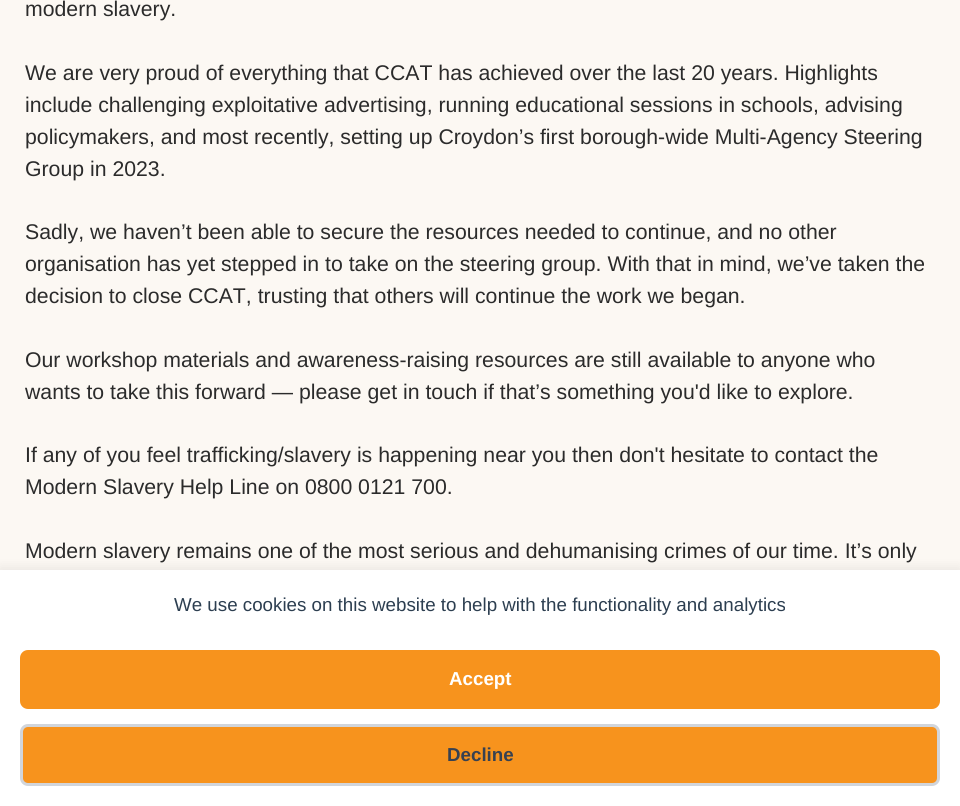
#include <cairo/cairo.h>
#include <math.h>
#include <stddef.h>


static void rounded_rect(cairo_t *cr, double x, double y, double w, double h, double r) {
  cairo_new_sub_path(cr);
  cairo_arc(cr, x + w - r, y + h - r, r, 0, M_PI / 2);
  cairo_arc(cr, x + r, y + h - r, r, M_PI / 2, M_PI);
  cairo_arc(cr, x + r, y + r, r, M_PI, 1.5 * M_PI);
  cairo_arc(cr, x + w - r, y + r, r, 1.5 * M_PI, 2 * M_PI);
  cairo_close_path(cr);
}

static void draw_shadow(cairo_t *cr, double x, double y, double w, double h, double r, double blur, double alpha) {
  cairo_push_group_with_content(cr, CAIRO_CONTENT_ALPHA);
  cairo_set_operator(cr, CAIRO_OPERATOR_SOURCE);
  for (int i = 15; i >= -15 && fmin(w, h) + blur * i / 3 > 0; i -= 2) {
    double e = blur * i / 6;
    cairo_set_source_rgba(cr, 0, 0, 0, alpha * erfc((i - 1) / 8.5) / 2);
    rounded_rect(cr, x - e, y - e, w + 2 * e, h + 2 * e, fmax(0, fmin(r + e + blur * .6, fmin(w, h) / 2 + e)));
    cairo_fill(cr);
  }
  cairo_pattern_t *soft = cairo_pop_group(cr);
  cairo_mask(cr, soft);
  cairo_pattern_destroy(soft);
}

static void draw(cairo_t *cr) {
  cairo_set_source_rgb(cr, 252 / 255.0, 248 / 255.0, 243 / 255.0);
  cairo_paint(cr);
  cairo_set_source_rgb(cr, 0, 0, 0);
  draw_shadow(cr, 0, 568, 960, 236, 0, 6, 0.08);
  cairo_set_source_rgb(cr, 1, 1, 1);
  cairo_rectangle(cr, 0, 570, 960, 236);
  cairo_fill(cr);
  cairo_set_source_rgb(cr, 247 / 255.0, 147 / 255.0, 29 / 255.0);
  rounded_rect(cr, 20, 650, 920, 59, 8);
  cairo_fill(cr);
  rounded_rect(cr, 21.5, 725.5, 917, 59, 6.5);
  cairo_fill_preserve(cr);
  cairo_set_source_rgb(cr, 209 / 255.0, 213 / 255.0, 219 / 255.0);
  cairo_set_line_width(cr, 3);
  cairo_stroke(cr);
  cairo_select_font_face(cr, "Liberation Sans", CAIRO_FONT_SLANT_NORMAL, CAIRO_FONT_WEIGHT_NORMAL);
  cairo_set_font_size(cr, 21.25);
  cairo_set_source_rgb(cr, 43 / 255.0, 43 / 255.0, 43 / 255.0);
  cairo_move_to(cr, 25, 16);
  cairo_show_text(cr, "modern slavery.");
  cairo_move_to(cr, 25, 80);
  cairo_show_text(cr, "We are very proud of everything that CCAT has achieved over the last 20 years. Highlights");
  cairo_move_to(cr, 25, 112);
  cairo_show_text(cr, "include challenging exploitative advertising, running educational sessions in schools, advising");
  cairo_move_to(cr, 25, 144);
  cairo_show_text(cr, "policymakers, and most recently, setting up Croydon’s first borough-wide Multi-Agency Steering");
  cairo_move_to(cr, 25, 176);
  cairo_show_text(cr, "Group in 2023.");
  cairo_move_to(cr, 25, 239);
  cairo_show_text(cr, "Sadly, we haven’t been able to secure the resources needed to continue, and no other");
  cairo_move_to(cr, 25, 271);
  cairo_show_text(cr, "organisation has yet stepped in to take on the steering group. With that in mind, we’ve taken the");
  cairo_move_to(cr, 25, 303);
  cairo_show_text(cr, "decision to close CCAT, trusting that others will continue the work we began.");
  cairo_move_to(cr, 25, 367);
  cairo_show_text(cr, "Our workshop materials and awareness-raising resources are still available to anyone who");
  cairo_move_to(cr, 25, 399);
  cairo_show_text(cr, "wants to take this forward — please get in touch if that’s something you'd like to explore.");
  cairo_move_to(cr, 25, 462);
  cairo_show_text(cr, "If any of you feel trafficking/slavery is happening near you then don't hesitate to contact the");
  cairo_move_to(cr, 25, 494);
  cairo_show_text(cr, "Modern Slavery Help Line on 0800 0121 700.");
  cairo_move_to(cr, 25, 558);
  cairo_show_text(cr, "Modern slavery remains one of the most serious and dehumanising crimes of our time. It’s only");
  cairo_set_font_size(cr, 18.75);
  cairo_set_source_rgb(cr, 44 / 255.0, 62 / 255.0, 80 / 255.0);
  cairo_move_to(cr, 174, 611);
  cairo_show_text(cr, "We use cookies on this website to help with the functionality and analytics");
  cairo_select_font_face(cr, "Liberation Sans", CAIRO_FONT_SLANT_NORMAL, CAIRO_FONT_WEIGHT_BOLD);
  cairo_set_source_rgb(cr, 1, 1, 1);
  cairo_move_to(cr, 449, 685);
  cairo_show_text(cr, "Accept");
  cairo_set_source_rgb(cr, 55 / 255.0, 65 / 255.0, 81 / 255.0);
  cairo_move_to(cr, 447, 761);
  cairo_show_text(cr, "Decline");
}

int main(void) {
  cairo_surface_t *surface = cairo_image_surface_create(CAIRO_FORMAT_RGB24, 960, 806);
  cairo_t *cr = cairo_create(surface);
  cairo_font_options_t *options = cairo_font_options_create();
  cairo_font_options_set_hint_metrics(options, CAIRO_HINT_METRICS_OFF);
  cairo_font_options_set_hint_style(options, CAIRO_HINT_STYLE_NONE);
  cairo_set_font_options(cr, options);
  cairo_set_miter_limit(cr, 4);
  draw(cr);
  cairo_surface_write_to_png(surface, "out.png");
  cairo_font_options_destroy(options);
  cairo_destroy(cr);
  cairo_surface_destroy(surface);
  return 0;
}
